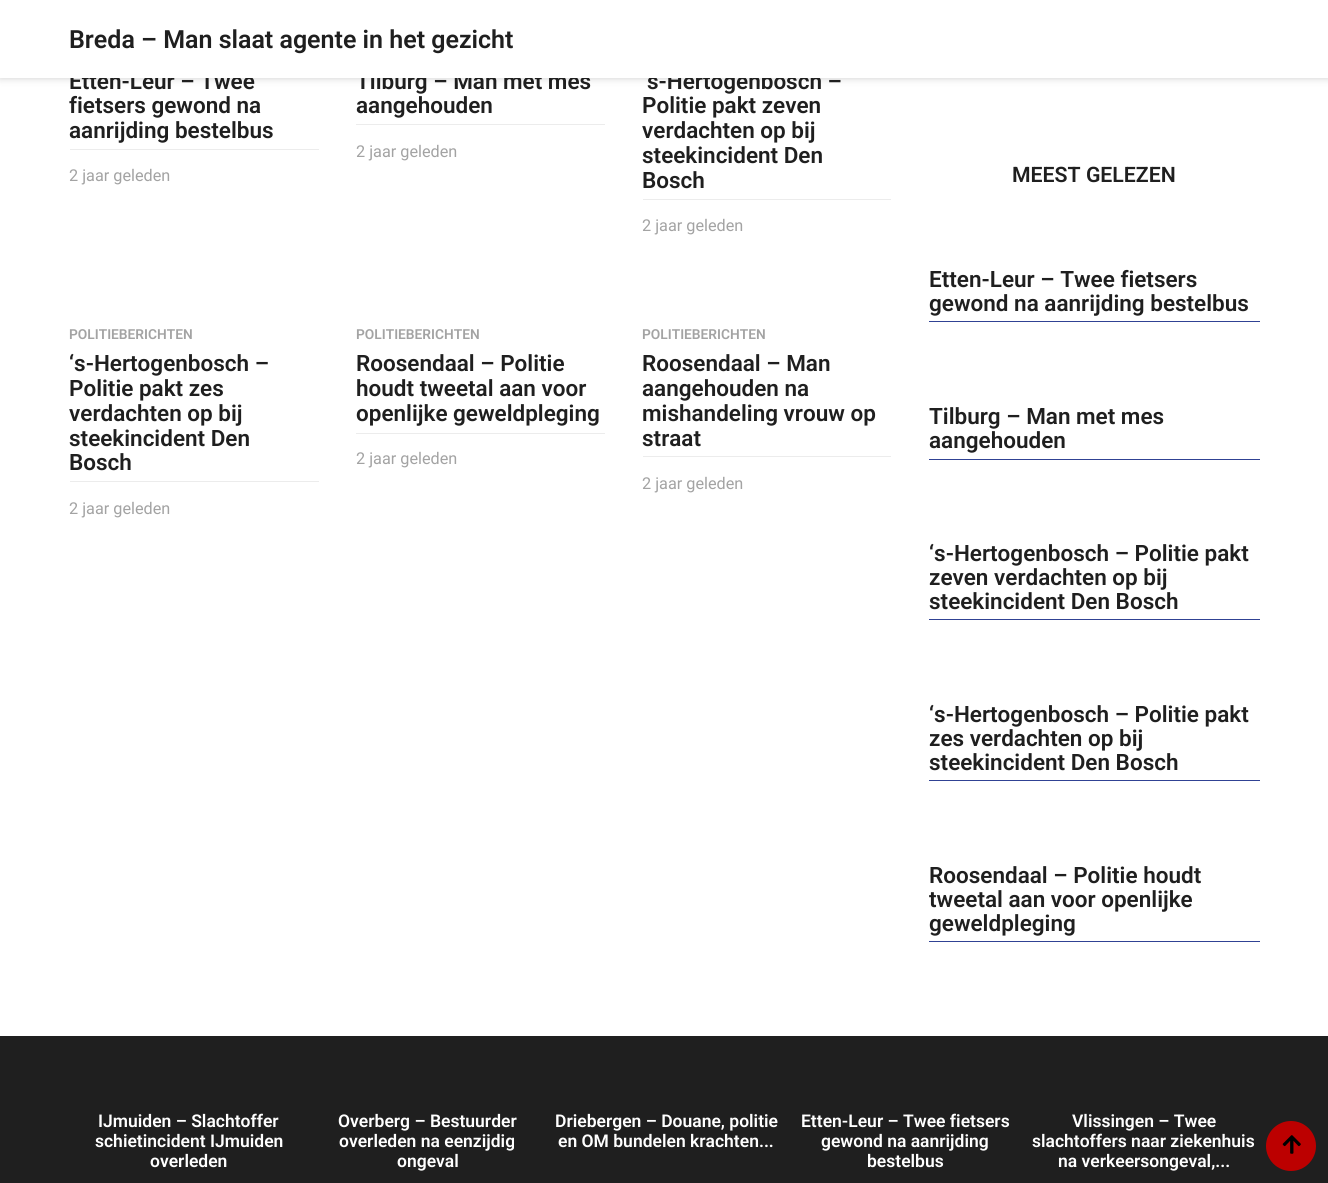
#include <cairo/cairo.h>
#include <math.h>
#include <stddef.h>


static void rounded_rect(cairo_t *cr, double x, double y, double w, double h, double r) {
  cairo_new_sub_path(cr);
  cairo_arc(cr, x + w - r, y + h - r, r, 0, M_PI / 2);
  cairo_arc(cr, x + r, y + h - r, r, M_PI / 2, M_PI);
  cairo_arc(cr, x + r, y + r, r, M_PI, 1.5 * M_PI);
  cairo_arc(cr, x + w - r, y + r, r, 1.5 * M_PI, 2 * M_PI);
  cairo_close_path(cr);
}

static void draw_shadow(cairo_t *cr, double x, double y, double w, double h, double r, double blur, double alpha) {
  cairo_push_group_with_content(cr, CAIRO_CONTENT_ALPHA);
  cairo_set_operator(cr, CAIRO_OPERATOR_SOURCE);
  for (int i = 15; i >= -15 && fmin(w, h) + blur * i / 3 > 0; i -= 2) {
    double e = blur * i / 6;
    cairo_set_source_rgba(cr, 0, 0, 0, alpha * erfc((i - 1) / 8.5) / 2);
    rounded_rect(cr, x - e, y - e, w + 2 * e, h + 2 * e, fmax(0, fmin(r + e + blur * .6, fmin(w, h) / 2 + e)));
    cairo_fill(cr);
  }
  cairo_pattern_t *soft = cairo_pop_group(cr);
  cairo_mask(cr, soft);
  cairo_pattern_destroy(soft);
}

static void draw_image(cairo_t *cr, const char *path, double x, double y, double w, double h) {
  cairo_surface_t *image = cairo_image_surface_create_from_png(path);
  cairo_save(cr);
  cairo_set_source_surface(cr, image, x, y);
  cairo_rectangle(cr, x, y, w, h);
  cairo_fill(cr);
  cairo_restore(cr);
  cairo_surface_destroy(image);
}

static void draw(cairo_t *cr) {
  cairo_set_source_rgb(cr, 1, 1, 1);
  cairo_paint(cr);
  cairo_set_source_rgb(cr, 0, 0, 0);
  draw_shadow(cr, 0, 0, 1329, 78, 0, 4, 0.2);
  cairo_set_source_rgb(cr, 236 / 255.0, 236 / 255.0, 236 / 255.0);
  cairo_rectangle(cr, 70, 149, 249, 1);
  cairo_fill(cr);
  cairo_rectangle(cr, 356, 124, 249, 1);
  cairo_fill(cr);
  cairo_rectangle(cr, 643, 199, 248, 1);
  cairo_fill(cr);
  cairo_rectangle(cr, 70, 481, 249, 1);
  cairo_fill(cr);
  cairo_rectangle(cr, 356, 433, 249, 1);
  cairo_fill(cr);
  cairo_rectangle(cr, 643, 456, 248, 1);
  cairo_fill(cr);
  cairo_set_source_rgb(cr, 48 / 255.0, 66 / 255.0, 148 / 255.0);
  cairo_rectangle(cr, 929, 321, 331, 1);
  cairo_fill(cr);
  cairo_rectangle(cr, 929, 459, 331, 1);
  cairo_fill(cr);
  cairo_rectangle(cr, 929, 619, 331, 1);
  cairo_fill(cr);
  cairo_rectangle(cr, 929, 780, 331, 1);
  cairo_fill(cr);
  cairo_rectangle(cr, 929, 941, 331, 1);
  cairo_fill(cr);
  cairo_set_source_rgb(cr, 31 / 255.0, 31 / 255.0, 31 / 255.0);
  cairo_rectangle(cr, 0, 1036, 1328, 147);
  cairo_fill(cr);
  cairo_set_source_rgb(cr, 188 / 255.0, 0, 0);
  cairo_arc(cr, 1291, 1146, 25, 0, 2 * M_PI);
  cairo_fill(cr);
  draw_image(cr, "images/1.png", 1282, 1135, 19, 19);
  cairo_select_font_face(cr, "Roboto SemiBold", CAIRO_FONT_SLANT_NORMAL, CAIRO_FONT_WEIGHT_NORMAL);
  cairo_set_font_size(cr, 22.5);
  cairo_set_source_rgb(cr, 31 / 255.0, 31 / 255.0, 31 / 255.0);
  cairo_move_to(cr, 69, 89);
  cairo_show_text(cr, "Etten-Leur – Twee");
  cairo_move_to(cr, 69, 113);
  cairo_show_text(cr, "fietsers gewond na");
  cairo_move_to(cr, 69, 138);
  cairo_show_text(cr, "aanrijding bestelbus");
  cairo_select_font_face(cr, "Roboto", CAIRO_FONT_SLANT_NORMAL, CAIRO_FONT_WEIGHT_NORMAL);
  cairo_set_font_size(cr, 16.25);
  cairo_set_source_rgb(cr, 163 / 255.0, 163 / 255.0, 163 / 255.0);
  cairo_move_to(cr, 69, 181);
  cairo_show_text(cr, "2 jaar geleden");
  cairo_select_font_face(cr, "Roboto SemiBold", CAIRO_FONT_SLANT_NORMAL, CAIRO_FONT_WEIGHT_NORMAL);
  cairo_set_font_size(cr, 22.5);
  cairo_set_source_rgb(cr, 31 / 255.0, 31 / 255.0, 31 / 255.0);
  cairo_move_to(cr, 356, 89);
  cairo_show_text(cr, "Tilburg – Man met mes");
  cairo_move_to(cr, 356, 113);
  cairo_show_text(cr, "aangehouden");
  cairo_select_font_face(cr, "Roboto", CAIRO_FONT_SLANT_NORMAL, CAIRO_FONT_WEIGHT_NORMAL);
  cairo_set_font_size(cr, 16.25);
  cairo_set_source_rgb(cr, 163 / 255.0, 163 / 255.0, 163 / 255.0);
  cairo_move_to(cr, 356, 157);
  cairo_show_text(cr, "2 jaar geleden");
  cairo_select_font_face(cr, "Roboto SemiBold", CAIRO_FONT_SLANT_NORMAL, CAIRO_FONT_WEIGHT_NORMAL);
  cairo_set_font_size(cr, 22.5);
  cairo_set_source_rgb(cr, 31 / 255.0, 31 / 255.0, 31 / 255.0);
  cairo_move_to(cr, 647, 89);
  cairo_show_text(cr, "s-Hertogenbosch –");
  cairo_set_source_rgb(cr, 1, 1, 1);
  cairo_rectangle(cr, 0, 0, 1328, 78);
  cairo_fill(cr);
  cairo_set_font_size(cr, 25);
  cairo_set_source_rgb(cr, 31 / 255.0, 31 / 255.0, 31 / 255.0);
  cairo_move_to(cr, 69, 48);
  cairo_show_text(cr, "Breda – Man slaat agente in het gezicht");
  cairo_set_font_size(cr, 22.5);
  cairo_move_to(cr, 642, 113);
  cairo_show_text(cr, "Politie pakt zeven");
  cairo_move_to(cr, 642, 138);
  cairo_show_text(cr, "verdachten op bij");
  cairo_move_to(cr, 642, 163);
  cairo_show_text(cr, "steekincident Den");
  cairo_move_to(cr, 642, 188);
  cairo_show_text(cr, "Bosch");
  cairo_select_font_face(cr, "Roboto", CAIRO_FONT_SLANT_NORMAL, CAIRO_FONT_WEIGHT_NORMAL);
  cairo_set_font_size(cr, 16.25);
  cairo_set_source_rgb(cr, 163 / 255.0, 163 / 255.0, 163 / 255.0);
  cairo_move_to(cr, 642, 231);
  cairo_show_text(cr, "2 jaar geleden");
  cairo_select_font_face(cr, "Roboto SemiBold", CAIRO_FONT_SLANT_NORMAL, CAIRO_FONT_WEIGHT_NORMAL);
  cairo_set_font_size(cr, 13.75);
  cairo_move_to(cr, 69, 339);
  cairo_show_text(cr, "POLITIEBERICHTEN");
  cairo_set_font_size(cr, 22.5);
  cairo_set_source_rgb(cr, 31 / 255.0, 31 / 255.0, 31 / 255.0);
  cairo_move_to(cr, 69, 371);
  cairo_show_text(cr, "‘s-Hertogenbosch –");
  cairo_move_to(cr, 69, 396);
  cairo_show_text(cr, "Politie pakt zes");
  cairo_move_to(cr, 69, 421);
  cairo_show_text(cr, "verdachten op bij");
  cairo_move_to(cr, 69, 446);
  cairo_show_text(cr, "steekincident Den");
  cairo_move_to(cr, 69, 470);
  cairo_show_text(cr, "Bosch");
  cairo_select_font_face(cr, "Roboto", CAIRO_FONT_SLANT_NORMAL, CAIRO_FONT_WEIGHT_NORMAL);
  cairo_set_font_size(cr, 16.25);
  cairo_set_source_rgb(cr, 163 / 255.0, 163 / 255.0, 163 / 255.0);
  cairo_move_to(cr, 69, 514);
  cairo_show_text(cr, "2 jaar geleden");
  cairo_select_font_face(cr, "Roboto SemiBold", CAIRO_FONT_SLANT_NORMAL, CAIRO_FONT_WEIGHT_NORMAL);
  cairo_set_font_size(cr, 13.75);
  cairo_move_to(cr, 356, 339);
  cairo_show_text(cr, "POLITIEBERICHTEN");
  cairo_set_font_size(cr, 22.5);
  cairo_set_source_rgb(cr, 31 / 255.0, 31 / 255.0, 31 / 255.0);
  cairo_move_to(cr, 356, 371);
  cairo_show_text(cr, "Roosendaal – Politie");
  cairo_move_to(cr, 356, 396);
  cairo_show_text(cr, "houdt tweetal aan voor");
  cairo_move_to(cr, 356, 421);
  cairo_show_text(cr, "openlijke geweldpleging");
  cairo_select_font_face(cr, "Roboto", CAIRO_FONT_SLANT_NORMAL, CAIRO_FONT_WEIGHT_NORMAL);
  cairo_set_font_size(cr, 16.25);
  cairo_set_source_rgb(cr, 163 / 255.0, 163 / 255.0, 163 / 255.0);
  cairo_move_to(cr, 356, 464);
  cairo_show_text(cr, "2 jaar geleden");
  cairo_select_font_face(cr, "Roboto SemiBold", CAIRO_FONT_SLANT_NORMAL, CAIRO_FONT_WEIGHT_NORMAL);
  cairo_set_font_size(cr, 13.75);
  cairo_move_to(cr, 642, 339);
  cairo_show_text(cr, "POLITIEBERICHTEN");
  cairo_set_font_size(cr, 22.5);
  cairo_set_source_rgb(cr, 31 / 255.0, 31 / 255.0, 31 / 255.0);
  cairo_move_to(cr, 642, 371);
  cairo_show_text(cr, "Roosendaal – Man");
  cairo_move_to(cr, 642, 396);
  cairo_show_text(cr, "aangehouden na");
  cairo_move_to(cr, 642, 421);
  cairo_show_text(cr, "mishandeling vrouw op");
  cairo_move_to(cr, 642, 446);
  cairo_show_text(cr, "straat");
  cairo_select_font_face(cr, "Roboto", CAIRO_FONT_SLANT_NORMAL, CAIRO_FONT_WEIGHT_NORMAL);
  cairo_set_font_size(cr, 16.25);
  cairo_set_source_rgb(cr, 163 / 255.0, 163 / 255.0, 163 / 255.0);
  cairo_move_to(cr, 642, 489);
  cairo_show_text(cr, "2 jaar geleden");
  cairo_select_font_face(cr, "Roboto SemiBold", CAIRO_FONT_SLANT_NORMAL, CAIRO_FONT_WEIGHT_NORMAL);
  cairo_set_font_size(cr, 21.25);
  cairo_set_source_rgb(cr, 31 / 255.0, 31 / 255.0, 31 / 255.0);
  cairo_move_to(cr, 1012, 182);
  cairo_show_text(cr, "MEEST GELEZEN");
  cairo_set_font_size(cr, 22.5);
  cairo_move_to(cr, 929, 287);
  cairo_show_text(cr, "Etten-Leur – Twee fietsers");
  cairo_move_to(cr, 929, 311);
  cairo_show_text(cr, "gewond na aanrijding bestelbus");
  cairo_move_to(cr, 929, 424);
  cairo_show_text(cr, "Tilburg – Man met mes");
  cairo_move_to(cr, 929, 448);
  cairo_show_text(cr, "aangehouden");
  cairo_move_to(cr, 929, 561);
  cairo_show_text(cr, "‘s-Hertogenbosch – Politie pakt");
  cairo_move_to(cr, 929, 585);
  cairo_show_text(cr, "zeven verdachten op bij");
  cairo_move_to(cr, 929, 609);
  cairo_show_text(cr, "steekincident Den Bosch");
  cairo_move_to(cr, 929, 722);
  cairo_show_text(cr, "‘s-Hertogenbosch – Politie pakt");
  cairo_move_to(cr, 929, 746);
  cairo_show_text(cr, "zes verdachten op bij");
  cairo_move_to(cr, 929, 770);
  cairo_show_text(cr, "steekincident Den Bosch");
  cairo_move_to(cr, 929, 883);
  cairo_show_text(cr, "Roosendaal – Politie houdt");
  cairo_move_to(cr, 929, 907);
  cairo_show_text(cr, "tweetal aan voor openlijke");
  cairo_move_to(cr, 929, 931);
  cairo_show_text(cr, "geweldpleging");
  cairo_set_font_size(cr, 17.5);
  cairo_set_source_rgb(cr, 1, 1, 1);
  cairo_move_to(cr, 98, 1127);
  cairo_show_text(cr, "IJmuiden – Slachtoffer");
  cairo_move_to(cr, 95, 1147);
  cairo_show_text(cr, "schietincident IJmuiden");
  cairo_move_to(cr, 150, 1167);
  cairo_show_text(cr, "overleden");
  cairo_move_to(cr, 338, 1127);
  cairo_show_text(cr, "Overberg – Bestuurder");
  cairo_move_to(cr, 339, 1147);
  cairo_show_text(cr, "overleden na eenzijdig");
  cairo_move_to(cr, 397, 1167);
  cairo_show_text(cr, "ongeval");
  cairo_move_to(cr, 555, 1127);
  cairo_show_text(cr, "Driebergen – Douane, politie");
  cairo_move_to(cr, 558, 1147);
  cairo_show_text(cr, "en OM bundelen krachten...");
  cairo_move_to(cr, 801, 1127);
  cairo_show_text(cr, "Etten-Leur – Twee fietsers");
  cairo_move_to(cr, 821, 1147);
  cairo_show_text(cr, "gewond na aanrijding");
  cairo_move_to(cr, 867, 1167);
  cairo_show_text(cr, "bestelbus");
  cairo_move_to(cr, 1072, 1127);
  cairo_show_text(cr, "Vlissingen – Twee");
  cairo_move_to(cr, 1032, 1147);
  cairo_show_text(cr, "slachtoffers naar ziekenhuis");
  cairo_move_to(cr, 1058, 1167);
  cairo_show_text(cr, "na verkeersongeval,...");
}

int main(void) {
  cairo_surface_t *surface = cairo_image_surface_create(CAIRO_FORMAT_RGB24, 1328, 1183);
  cairo_t *cr = cairo_create(surface);
  cairo_font_options_t *options = cairo_font_options_create();
  cairo_font_options_set_hint_metrics(options, CAIRO_HINT_METRICS_OFF);
  cairo_font_options_set_hint_style(options, CAIRO_HINT_STYLE_NONE);
  cairo_set_font_options(cr, options);
  cairo_set_miter_limit(cr, 4);
  draw(cr);
  cairo_surface_write_to_png(surface, "out.png");
  cairo_font_options_destroy(options);
  cairo_destroy(cr);
  cairo_surface_destroy(surface);
  return 0;
}
